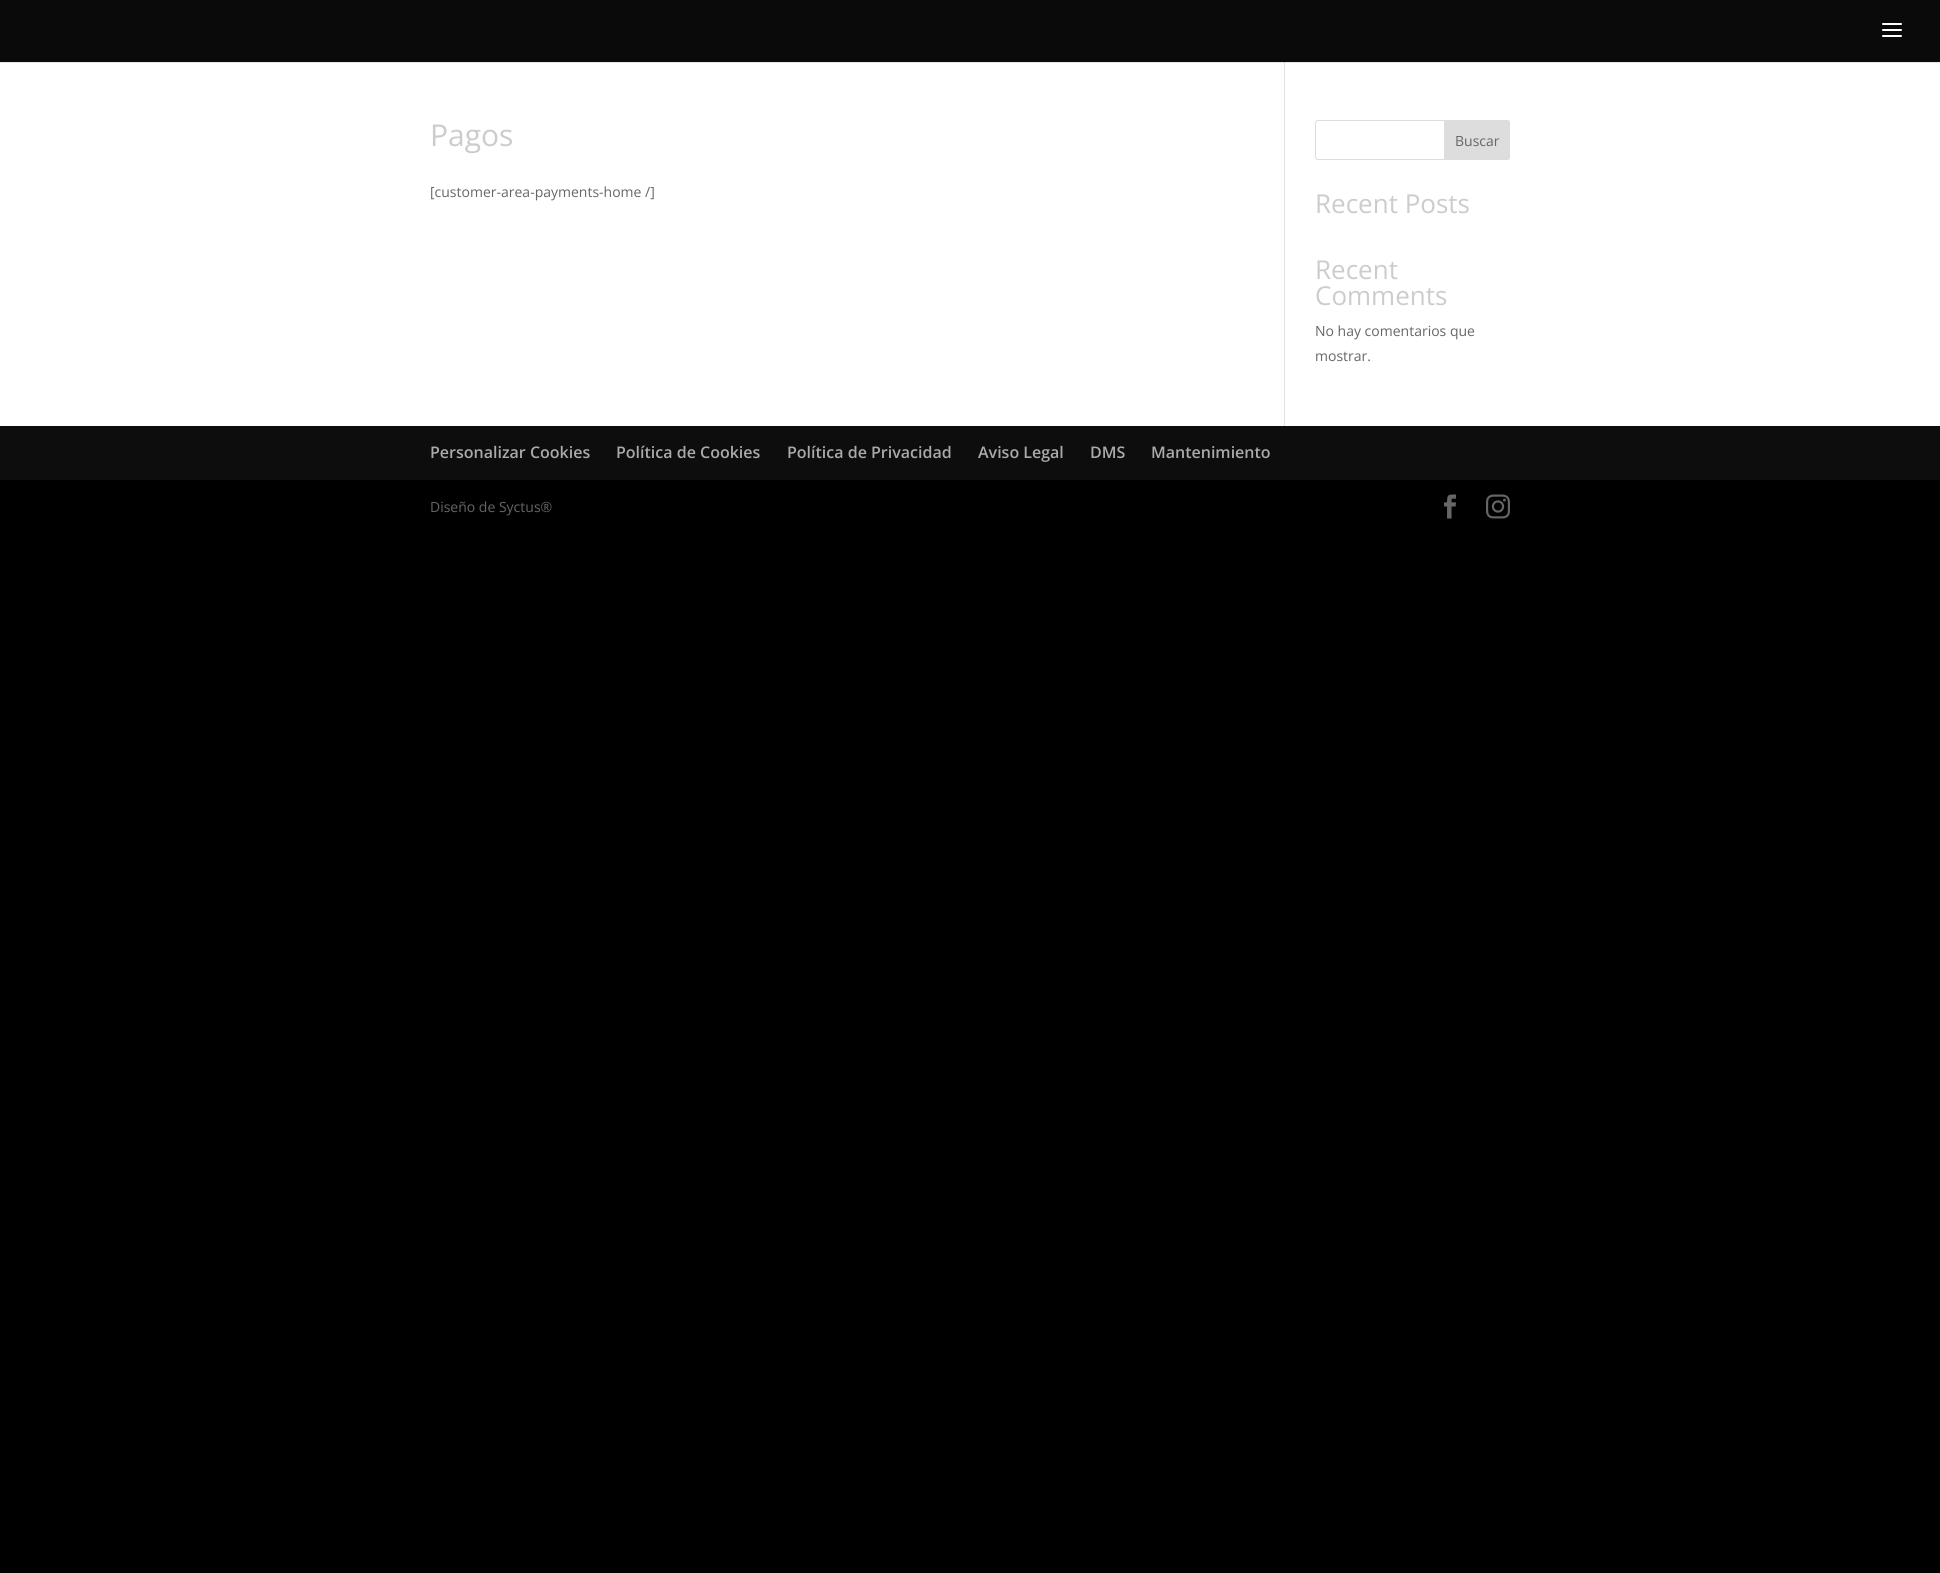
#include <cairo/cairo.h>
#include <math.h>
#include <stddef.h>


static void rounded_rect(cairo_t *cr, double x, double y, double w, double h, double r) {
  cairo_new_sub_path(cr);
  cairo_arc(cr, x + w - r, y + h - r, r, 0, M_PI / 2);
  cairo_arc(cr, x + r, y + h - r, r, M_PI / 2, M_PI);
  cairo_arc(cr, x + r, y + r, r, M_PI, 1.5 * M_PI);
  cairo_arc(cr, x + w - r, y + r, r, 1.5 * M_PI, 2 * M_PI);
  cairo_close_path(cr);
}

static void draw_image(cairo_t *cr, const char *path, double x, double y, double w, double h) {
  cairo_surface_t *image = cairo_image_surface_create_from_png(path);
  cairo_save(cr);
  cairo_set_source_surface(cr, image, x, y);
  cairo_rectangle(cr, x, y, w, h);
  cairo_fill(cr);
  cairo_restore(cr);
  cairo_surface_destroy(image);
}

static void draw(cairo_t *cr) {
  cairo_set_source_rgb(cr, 0, 0, 0);
  cairo_paint(cr);
  cairo_set_source_rgb(cr, 10 / 255.0, 10 / 255.0, 10 / 255.0);
  cairo_rectangle(cr, 0, 0, 1940, 62);
  cairo_fill(cr);
  draw_image(cr, "images/1.png", 1882, 23, 20, 14);
  cairo_set_source_rgb(cr, 1, 1, 1);
  cairo_rectangle(cr, 0, 63, 1940, 363);
  cairo_fill(cr);
  cairo_set_source_rgb(cr, 230 / 255.0, 230 / 255.0, 230 / 255.0);
  cairo_rectangle(cr, 0, 62, 1940, 1);
  cairo_fill(cr);
  cairo_set_source_rgb(cr, 226 / 255.0, 226 / 255.0, 226 / 255.0);
  cairo_rectangle(cr, 1284, 62, 1, 364);
  cairo_fill(cr);
  cairo_set_source_rgb(cr, 203 / 255.0, 203 / 255.0, 203 / 255.0);
  cairo_rectangle(cr, 1284, 62, 1, 1);
  cairo_fill(cr);
  rounded_rect(cr, 1315.5, 120.5, 194, 39, 2.5);
  cairo_set_source_rgb(cr, 221 / 255.0, 221 / 255.0, 221 / 255.0);
  cairo_set_line_width(cr, 1);
  cairo_stroke(cr);
  cairo_new_path(cr);
  cairo_move_to(cr, 1444.5, 120.5);
  cairo_line_to(cr, 1507, 120.5);
  cairo_curve_to(cr, 1508.5, 120.5, 1509.5, 121.5, 1509.5, 123);
  cairo_line_to(cr, 1509.5, 157);
  cairo_curve_to(cr, 1509.5, 158.5, 1508.5, 159.5, 1507, 159.5);
  cairo_line_to(cr, 1444.5, 159.5);
  cairo_close_path(cr);
  cairo_fill_preserve(cr);
  cairo_stroke(cr);
  cairo_set_source_rgb(cr, 13 / 255.0, 13 / 255.0, 13 / 255.0);
  cairo_rectangle(cr, 0, 426, 1940, 54);
  cairo_fill(cr);
  draw_image(cr, "images/2.png", 1444, 494, 12, 25);
  draw_image(cr, "images/3.png", 1486, 494, 24, 25);
  cairo_select_font_face(cr, "Open Sans", CAIRO_FONT_SLANT_NORMAL, CAIRO_FONT_WEIGHT_NORMAL);
  cairo_set_font_size(cr, 30);
  cairo_set_source_rgb(cr, 204 / 255.0, 204 / 255.0, 204 / 255.0);
  cairo_move_to(cr, 430, 146);
  cairo_show_text(cr, "Pagos");
  cairo_set_font_size(cr, 14);
  cairo_set_source_rgb(cr, 102 / 255.0, 102 / 255.0, 102 / 255.0);
  cairo_move_to(cr, 430, 197);
  cairo_show_text(cr, "[customer-area-payments-home /]");
  cairo_move_to(cr, 1455, 146);
  cairo_show_text(cr, "Buscar");
  cairo_set_font_size(cr, 26);
  cairo_set_source_rgb(cr, 204 / 255.0, 204 / 255.0, 204 / 255.0);
  cairo_move_to(cr, 1315, 213);
  cairo_show_text(cr, "Recent Posts");
  cairo_move_to(cr, 1315, 279);
  cairo_show_text(cr, "Recent");
  cairo_move_to(cr, 1315, 305);
  cairo_show_text(cr, "Comments");
  cairo_set_font_size(cr, 14);
  cairo_set_source_rgb(cr, 102 / 255.0, 102 / 255.0, 102 / 255.0);
  cairo_move_to(cr, 1315, 336);
  cairo_show_text(cr, "No hay comentarios que");
  cairo_move_to(cr, 1315, 361);
  cairo_show_text(cr, "mostrar.");
  cairo_select_font_face(cr, "Open Sans SemiBold", CAIRO_FONT_SLANT_NORMAL, CAIRO_FONT_WEIGHT_NORMAL);
  cairo_set_font_size(cr, 16);
  cairo_set_source_rgb(cr, 170 / 255.0, 170 / 255.0, 170 / 255.0);
  cairo_move_to(cr, 430, 458);
  cairo_show_text(cr, "Personalizar Cookies");
  cairo_move_to(cr, 616, 458);
  cairo_show_text(cr, "Política de Cookies");
  cairo_move_to(cr, 787, 458);
  cairo_show_text(cr, "Política de Privacidad");
  cairo_move_to(cr, 978, 458);
  cairo_show_text(cr, "Aviso Legal");
  cairo_move_to(cr, 1090, 458);
  cairo_show_text(cr, "DMS");
  cairo_move_to(cr, 1151, 458);
  cairo_show_text(cr, "Mantenimiento");
  cairo_select_font_face(cr, "Open Sans", CAIRO_FONT_SLANT_NORMAL, CAIRO_FONT_WEIGHT_NORMAL);
  cairo_set_font_size(cr, 14);
  cairo_set_source_rgb(cr, 102 / 255.0, 102 / 255.0, 102 / 255.0);
  cairo_move_to(cr, 430, 512);
  cairo_show_text(cr, "Diseño de Syctus®");
}

int main(void) {
  cairo_surface_t *surface = cairo_image_surface_create(CAIRO_FORMAT_RGB24, 1940, 1573);
  cairo_t *cr = cairo_create(surface);
  cairo_font_options_t *options = cairo_font_options_create();
  cairo_font_options_set_hint_metrics(options, CAIRO_HINT_METRICS_OFF);
  cairo_font_options_set_hint_style(options, CAIRO_HINT_STYLE_NONE);
  cairo_set_font_options(cr, options);
  cairo_set_miter_limit(cr, 4);
  draw(cr);
  cairo_surface_write_to_png(surface, "out.png");
  cairo_font_options_destroy(options);
  cairo_destroy(cr);
  cairo_surface_destroy(surface);
  return 0;
}
